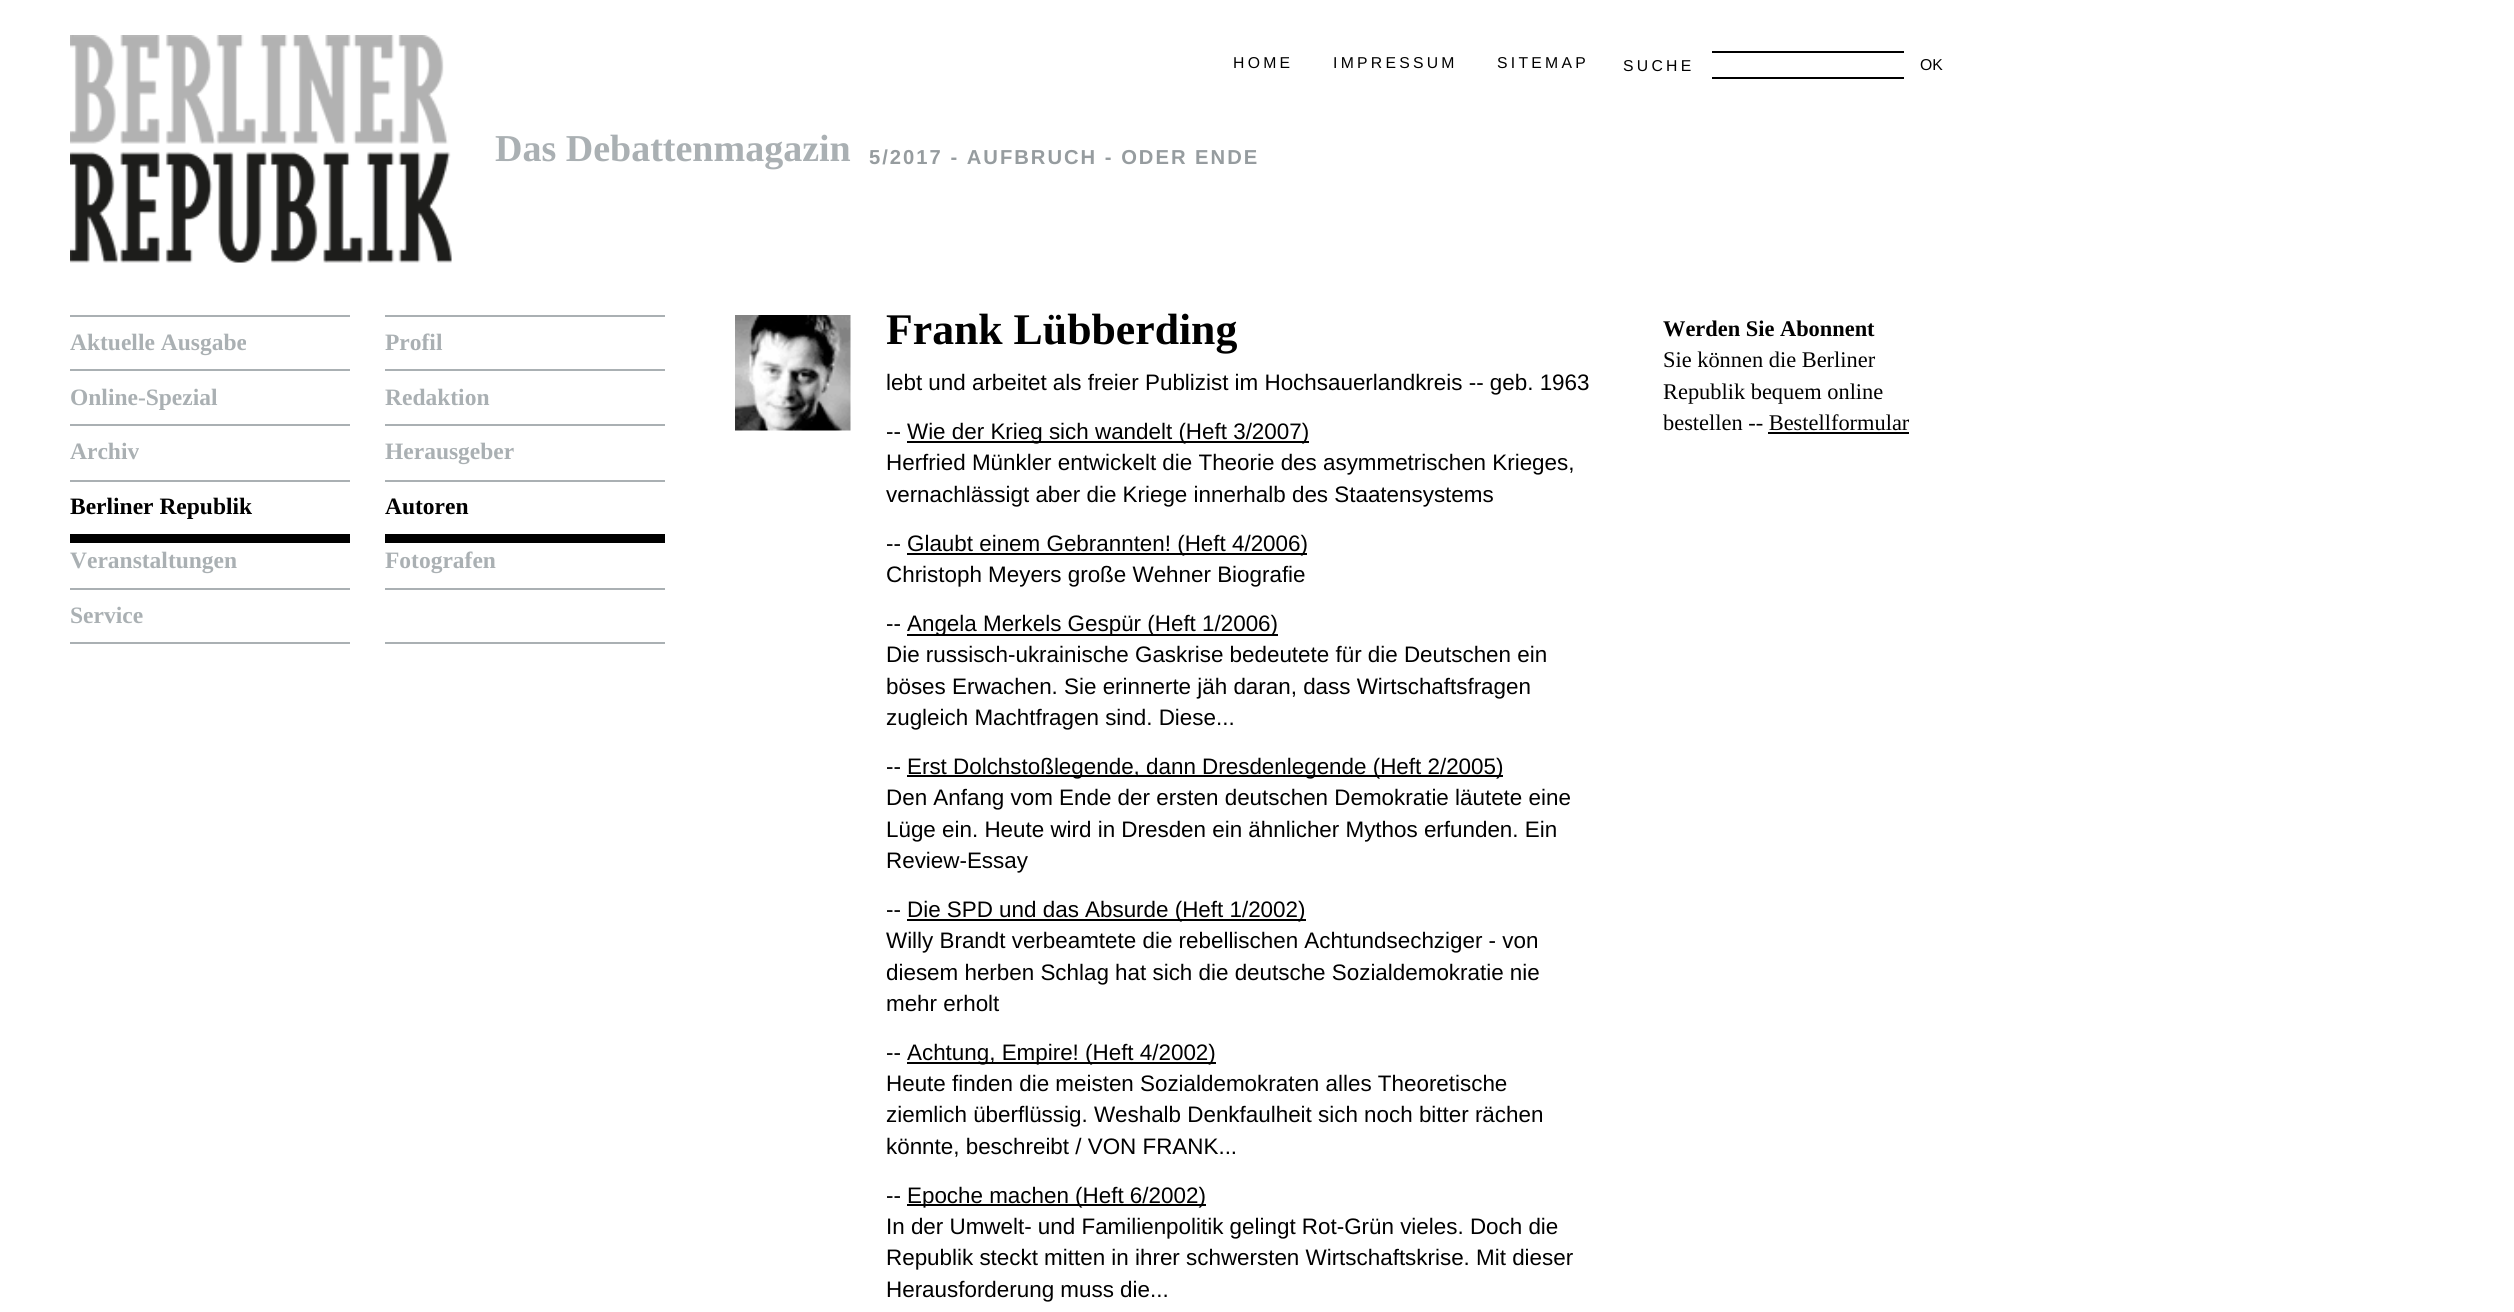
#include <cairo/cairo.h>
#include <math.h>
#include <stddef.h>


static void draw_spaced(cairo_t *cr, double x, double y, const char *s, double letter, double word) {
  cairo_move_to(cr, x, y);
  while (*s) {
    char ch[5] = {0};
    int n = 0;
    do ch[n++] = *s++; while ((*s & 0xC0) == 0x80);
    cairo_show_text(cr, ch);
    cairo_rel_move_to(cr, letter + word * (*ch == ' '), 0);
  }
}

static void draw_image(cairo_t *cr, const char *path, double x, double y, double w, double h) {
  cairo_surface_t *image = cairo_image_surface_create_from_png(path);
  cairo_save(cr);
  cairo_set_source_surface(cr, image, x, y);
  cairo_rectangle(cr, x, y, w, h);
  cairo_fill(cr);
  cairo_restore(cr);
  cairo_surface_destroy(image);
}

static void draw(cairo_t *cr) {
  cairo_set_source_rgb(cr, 1, 1, 1);
  cairo_paint(cr);
  cairo_set_source_rgb(cr, 0, 0, 0);
  cairo_rectangle(cr, 1712, 51, 192, 2);
  cairo_fill(cr);
  cairo_rectangle(cr, 1712, 77, 192, 2);
  cairo_fill(cr);
  draw_image(cr, "images/1.png", 70, 35, 382, 228);
  cairo_set_source_rgb(cr, 170 / 255.0, 176 / 255.0, 179 / 255.0);
  cairo_rectangle(cr, 70, 315, 280, 2);
  cairo_fill(cr);
  cairo_rectangle(cr, 70, 369, 280, 2);
  cairo_fill(cr);
  cairo_rectangle(cr, 70, 424, 280, 2);
  cairo_fill(cr);
  cairo_rectangle(cr, 70, 480, 280, 2);
  cairo_fill(cr);
  cairo_set_source_rgb(cr, 0, 0, 0);
  cairo_rectangle(cr, 70, 534, 280, 9);
  cairo_fill(cr);
  cairo_set_source_rgb(cr, 170 / 255.0, 176 / 255.0, 179 / 255.0);
  cairo_rectangle(cr, 70, 588, 280, 2);
  cairo_fill(cr);
  cairo_rectangle(cr, 70, 642, 280, 2);
  cairo_fill(cr);
  cairo_rectangle(cr, 385, 315, 280, 2);
  cairo_fill(cr);
  cairo_rectangle(cr, 385, 369, 280, 2);
  cairo_fill(cr);
  cairo_rectangle(cr, 385, 424, 280, 2);
  cairo_fill(cr);
  cairo_rectangle(cr, 385, 480, 280, 2);
  cairo_fill(cr);
  cairo_set_source_rgb(cr, 0, 0, 0);
  cairo_rectangle(cr, 385, 534, 280, 9);
  cairo_fill(cr);
  cairo_set_source_rgb(cr, 170 / 255.0, 176 / 255.0, 179 / 255.0);
  cairo_rectangle(cr, 385, 588, 280, 2);
  cairo_fill(cr);
  cairo_rectangle(cr, 385, 642, 280, 2);
  cairo_fill(cr);
  draw_image(cr, "images/2.png", 735, 315, 116, 116);
  cairo_set_source_rgb(cr, 0, 0, 0);
  cairo_rectangle(cr, 907, 441, 402, 2);
  cairo_fill(cr);
  cairo_rectangle(cr, 907, 553, 400, 2);
  cairo_fill(cr);
  cairo_rectangle(cr, 907, 634, 371, 2);
  cairo_fill(cr);
  cairo_rectangle(cr, 907, 775, 596, 2);
  cairo_fill(cr);
  cairo_rectangle(cr, 907, 919, 399, 2);
  cairo_fill(cr);
  cairo_rectangle(cr, 907, 1062, 309, 2);
  cairo_fill(cr);
  cairo_rectangle(cr, 907, 1204, 299, 2);
  cairo_fill(cr);
  cairo_rectangle(cr, 1768, 432, 141, 2);
  cairo_fill(cr);
  cairo_select_font_face(cr, "Liberation Sans", CAIRO_FONT_SLANT_NORMAL, CAIRO_FONT_WEIGHT_NORMAL);
  cairo_set_font_size(cr, 15.75);
  draw_spaced(cr, 1233, 68, "HOME", 3.25, 0);
  draw_spaced(cr, 1333, 68, "IMPRESSUM", 3.25, 0);
  draw_spaced(cr, 1497, 68, "SITEMAP", 3.25, 0);
  draw_spaced(cr, 1623, 71, "SUCHE", 3.25, 0);
  cairo_move_to(cr, 1920, 70);
  cairo_show_text(cr, "OK");
  cairo_select_font_face(cr, "Liberation Serif", CAIRO_FONT_SLANT_NORMAL, CAIRO_FONT_WEIGHT_BOLD);
  cairo_set_font_size(cr, 38);
  cairo_set_source_rgb(cr, 170 / 255.0, 176 / 255.0, 179 / 255.0);
  cairo_move_to(cr, 495, 161);
  cairo_show_text(cr, "Das Debattenmagazin");
  cairo_select_font_face(cr, "Liberation Sans", CAIRO_FONT_SLANT_NORMAL, CAIRO_FONT_WEIGHT_BOLD);
  cairo_set_font_size(cr, 20.2);
  cairo_set_source_rgb(cr, 150 / 255.0, 156 / 255.0, 159 / 255.0);
  draw_spaced(cr, 869, 164, "5/2017 - AUFBRUCH - ODER ENDE", 2, 0);
  cairo_select_font_face(cr, "Liberation Serif", CAIRO_FONT_SLANT_NORMAL, CAIRO_FONT_WEIGHT_BOLD);
  cairo_set_font_size(cr, 23.5);
  cairo_set_source_rgb(cr, 170 / 255.0, 176 / 255.0, 179 / 255.0);
  cairo_move_to(cr, 70, 350);
  cairo_show_text(cr, "Aktuelle Ausgabe");
  cairo_move_to(cr, 70, 405);
  cairo_show_text(cr, "Online-Spezial");
  cairo_move_to(cr, 70, 459);
  cairo_show_text(cr, "Archiv");
  cairo_set_source_rgb(cr, 0, 0, 0);
  cairo_move_to(cr, 70, 514);
  cairo_show_text(cr, "Berliner Republik");
  cairo_set_source_rgb(cr, 170 / 255.0, 176 / 255.0, 179 / 255.0);
  cairo_move_to(cr, 70, 568);
  cairo_show_text(cr, "Veranstaltungen");
  cairo_move_to(cr, 70, 623);
  cairo_show_text(cr, "Service");
  cairo_move_to(cr, 385, 350);
  cairo_show_text(cr, "Profil");
  cairo_move_to(cr, 385, 405);
  cairo_show_text(cr, "Redaktion");
  cairo_move_to(cr, 385, 459);
  cairo_show_text(cr, "Herausgeber");
  cairo_set_source_rgb(cr, 0, 0, 0);
  cairo_move_to(cr, 385, 514);
  cairo_show_text(cr, "Autoren");
  cairo_set_source_rgb(cr, 170 / 255.0, 176 / 255.0, 179 / 255.0);
  cairo_move_to(cr, 385, 568);
  cairo_show_text(cr, "Fotografen");
  cairo_set_font_size(cr, 43.75);
  cairo_set_source_rgb(cr, 0, 0, 0);
  cairo_move_to(cr, 886, 344);
  cairo_show_text(cr, "Frank Lübberding");
  cairo_select_font_face(cr, "Liberation Sans", CAIRO_FONT_SLANT_NORMAL, CAIRO_FONT_WEIGHT_NORMAL);
  cairo_set_font_size(cr, 22.4);
  cairo_move_to(cr, 886, 390);
  cairo_show_text(cr, "lebt und arbeitet als freier Publizist im Hochsauerlandkreis -- geb. 1963");
  cairo_move_to(cr, 886, 439);
  cairo_show_text(cr, "--");
  cairo_move_to(cr, 907, 439);
  cairo_show_text(cr, "Wie der Krieg sich wandelt (Heft 3/2007)");
  cairo_move_to(cr, 886, 470);
  cairo_show_text(cr, "Herfried Münkler entwickelt die Theorie des asymmetrischen Krieges,");
  cairo_move_to(cr, 886, 502);
  cairo_show_text(cr, "vernachlässigt aber die Kriege innerhalb des Staatensystems");
  cairo_move_to(cr, 886, 551);
  cairo_show_text(cr, "--");
  cairo_move_to(cr, 907, 551);
  cairo_show_text(cr, "Glaubt einem Gebrannten! (Heft 4/2006)");
  cairo_move_to(cr, 886, 582);
  cairo_show_text(cr, "Christoph Meyers große Wehner Biografie");
  cairo_move_to(cr, 886, 631);
  cairo_show_text(cr, "--");
  cairo_move_to(cr, 907, 631);
  cairo_show_text(cr, "Angela Merkels Gespür (Heft 1/2006)");
  cairo_move_to(cr, 886, 662);
  cairo_show_text(cr, "Die russisch-ukrainische Gaskrise bedeutete für die Deutschen ein");
  cairo_move_to(cr, 886, 694);
  cairo_show_text(cr, "böses Erwachen. Sie erinnerte jäh daran, dass Wirtschaftsfragen");
  cairo_move_to(cr, 886, 725);
  cairo_show_text(cr, "zugleich Machtfragen sind. Diese...");
  cairo_move_to(cr, 886, 774);
  cairo_show_text(cr, "--");
  cairo_move_to(cr, 907, 774);
  cairo_show_text(cr, "Erst Dolchstoßlegende, dann Dresdenlegende (Heft 2/2005)");
  cairo_move_to(cr, 886, 805);
  cairo_show_text(cr, "Den Anfang vom Ende der ersten deutschen Demokratie läutete eine");
  cairo_move_to(cr, 886, 837);
  cairo_show_text(cr, "Lüge ein. Heute wird in Dresden ein ähnlicher Mythos erfunden. Ein");
  cairo_move_to(cr, 886, 868);
  cairo_show_text(cr, "Review-Essay");
  cairo_move_to(cr, 886, 917);
  cairo_show_text(cr, "--");
  cairo_move_to(cr, 907, 917);
  cairo_show_text(cr, "Die SPD und das Absurde (Heft 1/2002)");
  cairo_move_to(cr, 886, 948);
  cairo_show_text(cr, "Willy Brandt verbeamtete die rebellischen Achtundsechziger - von");
  cairo_move_to(cr, 886, 980);
  cairo_show_text(cr, "diesem herben Schlag hat sich die deutsche Sozialdemokratie nie");
  cairo_move_to(cr, 886, 1011);
  cairo_show_text(cr, "mehr erholt");
  cairo_move_to(cr, 886, 1060);
  cairo_show_text(cr, "--");
  cairo_move_to(cr, 907, 1060);
  cairo_show_text(cr, "Achtung, Empire! (Heft 4/2002)");
  cairo_move_to(cr, 886, 1091);
  cairo_show_text(cr, "Heute finden die meisten Sozialdemokraten alles Theoretische");
  cairo_move_to(cr, 886, 1122);
  cairo_show_text(cr, "ziemlich überflüssig. Weshalb Denkfaulheit sich noch bitter rächen");
  cairo_move_to(cr, 886, 1154);
  cairo_show_text(cr, "könnte, beschreibt / VON FRANK...");
  cairo_move_to(cr, 886, 1203);
  cairo_show_text(cr, "--");
  cairo_move_to(cr, 907, 1203);
  cairo_show_text(cr, "Epoche machen (Heft 6/2002)");
  cairo_move_to(cr, 886, 1234);
  cairo_show_text(cr, "In der Umwelt- und Familienpolitik gelingt Rot-Grün vieles. Doch die");
  cairo_move_to(cr, 886, 1265);
  cairo_show_text(cr, "Republik steckt mitten in ihrer schwersten Wirtschaftskrise. Mit dieser");
  cairo_move_to(cr, 886, 1297);
  cairo_show_text(cr, "Herausforderung muss die...");
  cairo_select_font_face(cr, "Liberation Serif", CAIRO_FONT_SLANT_NORMAL, CAIRO_FONT_WEIGHT_BOLD);
  cairo_move_to(cr, 1663, 336);
  cairo_show_text(cr, "Werden Sie Abonnent");
  cairo_select_font_face(cr, "Liberation Serif", CAIRO_FONT_SLANT_NORMAL, CAIRO_FONT_WEIGHT_NORMAL);
  cairo_move_to(cr, 1663, 367);
  cairo_show_text(cr, "Sie können die Berliner");
  cairo_move_to(cr, 1663, 399);
  cairo_show_text(cr, "Republik bequem online");
  cairo_move_to(cr, 1663, 430);
  cairo_show_text(cr, "bestellen -- Bestellformular");
}

int main(void) {
  cairo_surface_t *surface = cairo_image_surface_create(CAIRO_FORMAT_RGB24, 2514, 1312);
  cairo_t *cr = cairo_create(surface);
  cairo_font_options_t *options = cairo_font_options_create();
  cairo_font_options_set_hint_metrics(options, CAIRO_HINT_METRICS_OFF);
  cairo_font_options_set_hint_style(options, CAIRO_HINT_STYLE_NONE);
  cairo_set_font_options(cr, options);
  cairo_set_miter_limit(cr, 4);
  draw(cr);
  cairo_surface_write_to_png(surface, "out.png");
  cairo_font_options_destroy(options);
  cairo_destroy(cr);
  cairo_surface_destroy(surface);
  return 0;
}
